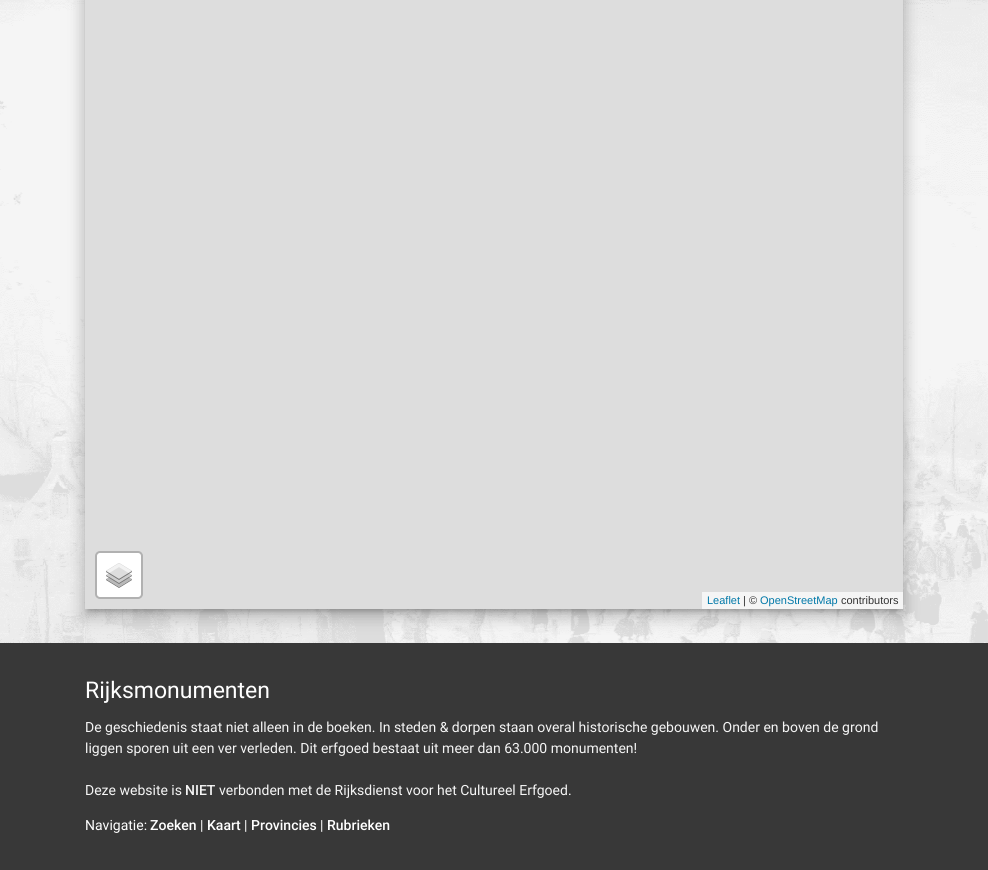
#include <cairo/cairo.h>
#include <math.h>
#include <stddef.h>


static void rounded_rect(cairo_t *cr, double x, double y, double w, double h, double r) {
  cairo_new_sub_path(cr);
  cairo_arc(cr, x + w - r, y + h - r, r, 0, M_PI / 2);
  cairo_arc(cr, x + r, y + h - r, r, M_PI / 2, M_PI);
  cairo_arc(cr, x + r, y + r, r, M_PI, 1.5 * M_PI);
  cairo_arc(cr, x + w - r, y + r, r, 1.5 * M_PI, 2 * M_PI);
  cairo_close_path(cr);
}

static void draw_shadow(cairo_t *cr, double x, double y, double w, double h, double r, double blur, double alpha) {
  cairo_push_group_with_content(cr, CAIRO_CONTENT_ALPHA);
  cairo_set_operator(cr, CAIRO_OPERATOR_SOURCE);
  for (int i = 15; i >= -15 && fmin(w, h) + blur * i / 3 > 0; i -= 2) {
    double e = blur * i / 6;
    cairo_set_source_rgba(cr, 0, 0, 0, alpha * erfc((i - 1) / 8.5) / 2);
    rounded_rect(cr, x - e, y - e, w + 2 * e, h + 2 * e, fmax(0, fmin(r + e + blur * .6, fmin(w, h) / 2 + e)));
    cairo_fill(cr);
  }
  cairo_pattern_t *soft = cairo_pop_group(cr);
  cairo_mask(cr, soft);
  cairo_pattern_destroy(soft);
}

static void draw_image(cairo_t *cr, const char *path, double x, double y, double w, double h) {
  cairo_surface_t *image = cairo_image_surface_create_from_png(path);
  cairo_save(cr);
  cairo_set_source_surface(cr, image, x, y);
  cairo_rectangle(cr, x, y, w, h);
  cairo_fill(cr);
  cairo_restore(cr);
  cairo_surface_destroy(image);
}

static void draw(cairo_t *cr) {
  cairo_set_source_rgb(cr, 1, 1, 1);
  cairo_paint(cr);
  draw_image(cr, "images/1.png", 0, 0, 988, 643);
  cairo_set_source_rgb(cr, 0, 0, 0);
  draw_shadow(cr, 88, -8, 812, 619, 0, 2.5, 0.2);
  draw_shadow(cr, 83, -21, 822, 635, 0, 7, 0.12);
  cairo_set_source_rgb(cr, 56 / 255.0, 56 / 255.0, 56 / 255.0);
  cairo_rectangle(cr, 0, 643, 988, 227);
  cairo_fill(cr);
  cairo_set_source_rgb(cr, 0, 0, 0);
  draw_shadow(cr, 83, -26, 822, 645, 0, 8.5, 0.14);
  cairo_set_source_rgb(cr, 221 / 255.0, 221 / 255.0, 221 / 255.0);
  cairo_rectangle(cr, 85, 0, 818, 609);
  cairo_fill(cr);
  cairo_set_source_rgb(cr, 1, 1, 1);
  rounded_rect(cr, 96, 552, 46, 46, 4);
  cairo_fill_preserve(cr);
  cairo_set_source_rgb(cr, 177 / 255.0, 177 / 255.0, 177 / 255.0);
  cairo_stroke(cr);
  draw_image(cr, "images/2.png", 106, 563, 26, 25);
  cairo_set_source_rgb(cr, 245 / 255.0, 245 / 255.0, 245 / 255.0);
  cairo_rectangle(cr, 702, 592, 201, 17);
  cairo_fill(cr);
  cairo_select_font_face(cr, "Liberation Sans", CAIRO_FONT_SLANT_NORMAL, CAIRO_FONT_WEIGHT_NORMAL);
  cairo_set_font_size(cr, 11);
  cairo_set_source_rgb(cr, 0, 120 / 255.0, 168 / 255.0);
  cairo_move_to(cr, 707, 604);
  cairo_show_text(cr, "Leaflet");
  cairo_set_source_rgb(cr, 51 / 255.0, 51 / 255.0, 51 / 255.0);
  cairo_move_to(cr, 743, 604);
  cairo_show_text(cr, "| ©");
  cairo_set_source_rgb(cr, 0, 120 / 255.0, 168 / 255.0);
  cairo_move_to(cr, 760, 604);
  cairo_show_text(cr, "OpenStreetMap");
  cairo_set_source_rgb(cr, 51 / 255.0, 51 / 255.0, 51 / 255.0);
  cairo_move_to(cr, 841, 604);
  cairo_show_text(cr, "contributors");
  cairo_select_font_face(cr, "Roboto", CAIRO_FONT_SLANT_NORMAL, CAIRO_FONT_WEIGHT_NORMAL);
  cairo_set_font_size(cr, 23);
  cairo_set_source_rgb(cr, 1, 1, 1);
  cairo_move_to(cr, 85, 698);
  cairo_show_text(cr, "Rijksmonumenten");
  cairo_set_font_size(cr, 14);
  cairo_set_source_rgb(cr, 245 / 255.0, 245 / 255.0, 245 / 255.0);
  cairo_move_to(cr, 85, 732);
  cairo_show_text(cr, "De geschiedenis staat niet alleen in de boeken. In steden & dorpen staan overal historische gebouwen. Onder en boven de grond");
  cairo_move_to(cr, 85, 753);
  cairo_show_text(cr, "liggen sporen uit een ver verleden. Dit erfgoed bestaat uit meer dan 63.000 monumenten!");
  cairo_move_to(cr, 85, 795);
  cairo_show_text(cr, "Deze website is");
  cairo_select_font_face(cr, "Roboto Medium", CAIRO_FONT_SLANT_NORMAL, CAIRO_FONT_WEIGHT_NORMAL);
  cairo_move_to(cr, 185, 795);
  cairo_show_text(cr, "NIET");
  cairo_select_font_face(cr, "Roboto", CAIRO_FONT_SLANT_NORMAL, CAIRO_FONT_WEIGHT_NORMAL);
  cairo_move_to(cr, 219, 795);
  cairo_show_text(cr, "verbonden met de Rijksdienst voor het Cultureel Erfgoed.");
  cairo_set_source_rgb(cr, 1, 1, 1);
  cairo_move_to(cr, 85, 830);
  cairo_show_text(cr, "Navigatie:");
  cairo_select_font_face(cr, "Roboto Medium", CAIRO_FONT_SLANT_NORMAL, CAIRO_FONT_WEIGHT_NORMAL);
  cairo_move_to(cr, 150, 830);
  cairo_show_text(cr, "Zoeken");
  cairo_select_font_face(cr, "Roboto", CAIRO_FONT_SLANT_NORMAL, CAIRO_FONT_WEIGHT_NORMAL);
  cairo_move_to(cr, 200, 830);
  cairo_show_text(cr, "|");
  cairo_select_font_face(cr, "Roboto Medium", CAIRO_FONT_SLANT_NORMAL, CAIRO_FONT_WEIGHT_NORMAL);
  cairo_move_to(cr, 207, 830);
  cairo_show_text(cr, "Kaart");
  cairo_select_font_face(cr, "Roboto", CAIRO_FONT_SLANT_NORMAL, CAIRO_FONT_WEIGHT_NORMAL);
  cairo_move_to(cr, 244, 830);
  cairo_show_text(cr, "|");
  cairo_select_font_face(cr, "Roboto Medium", CAIRO_FONT_SLANT_NORMAL, CAIRO_FONT_WEIGHT_NORMAL);
  cairo_move_to(cr, 251, 830);
  cairo_show_text(cr, "Provincies");
  cairo_select_font_face(cr, "Roboto", CAIRO_FONT_SLANT_NORMAL, CAIRO_FONT_WEIGHT_NORMAL);
  cairo_move_to(cr, 320, 830);
  cairo_show_text(cr, "|");
  cairo_select_font_face(cr, "Roboto Medium", CAIRO_FONT_SLANT_NORMAL, CAIRO_FONT_WEIGHT_NORMAL);
  cairo_move_to(cr, 327, 830);
  cairo_show_text(cr, "Rubrieken");
}

int main(void) {
  cairo_surface_t *surface = cairo_image_surface_create(CAIRO_FORMAT_RGB24, 988, 870);
  cairo_t *cr = cairo_create(surface);
  cairo_font_options_t *options = cairo_font_options_create();
  cairo_font_options_set_hint_metrics(options, CAIRO_HINT_METRICS_OFF);
  cairo_font_options_set_hint_style(options, CAIRO_HINT_STYLE_NONE);
  cairo_set_font_options(cr, options);
  cairo_set_miter_limit(cr, 4);
  draw(cr);
  cairo_surface_write_to_png(surface, "out.png");
  cairo_font_options_destroy(options);
  cairo_destroy(cr);
  cairo_surface_destroy(surface);
  return 0;
}
